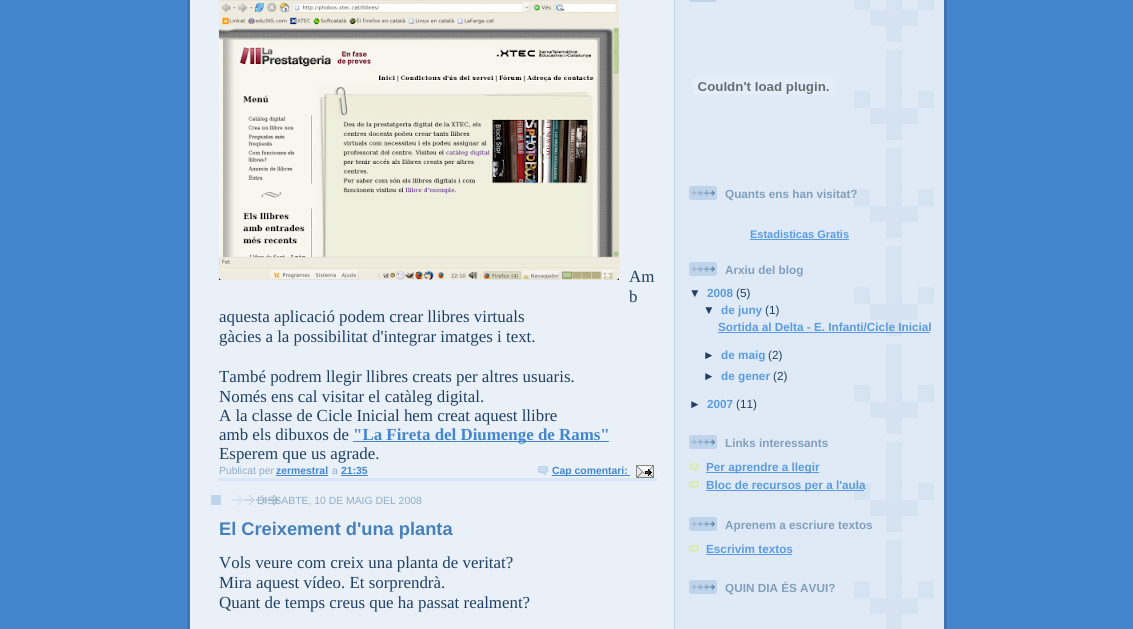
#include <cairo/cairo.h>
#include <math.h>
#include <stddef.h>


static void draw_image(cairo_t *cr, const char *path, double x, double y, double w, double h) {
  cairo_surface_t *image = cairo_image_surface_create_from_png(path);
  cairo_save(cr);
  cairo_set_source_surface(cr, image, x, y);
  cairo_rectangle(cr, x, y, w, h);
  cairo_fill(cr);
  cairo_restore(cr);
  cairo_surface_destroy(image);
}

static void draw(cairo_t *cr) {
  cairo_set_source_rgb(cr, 67 / 255.0, 134 / 255.0, 206 / 255.0);
  cairo_paint(cr);
  draw_image(cr, "images/1.png", 187, 0, 760, 629);
  cairo_set_source_rgb(cr, 216 / 255.0, 231 / 255.0, 247 / 255.0);
  cairo_rectangle(cr, 219, 478, 438, 3);
  cairo_fill(cr);
  draw_image(cr, "images/2.png", 219, 0, 400, 280);
  cairo_set_source_rgb(cr, 67 / 255.0, 134 / 255.0, 206 / 255.0);
  cairo_rectangle(cr, 353, 441, 256, 1);
  cairo_fill(cr);
  cairo_rectangle(cr, 276, 475, 52, 1);
  cairo_fill(cr);
  cairo_rectangle(cr, 341, 475, 27, 1);
  cairo_fill(cr);
  draw_image(cr, "images/3.png", 538, 466, 10, 9);
  cairo_rectangle(cr, 552, 475, 78, 1);
  cairo_fill(cr);
  draw_image(cr, "images/4.png", 636, 465, 18, 13);
  cairo_set_source_rgb(cr, 189 / 255.0, 212 / 255.0, 235 / 255.0);
  cairo_rectangle(cr, 211, 495, 10, 10);
  cairo_fill(cr);
  draw_image(cr, "images/5.png", 232, 495, 47, 10);
  draw_image(cr, "images/6.png", 854, 0, 80, 629);
  draw_image(cr, "images/7.png", 689, 0, 28, 2);
  draw_image(cr, "images/8.png", 692, 77, 143, 18);
  draw_image(cr, "images/9.png", 689, 186, 28, 14);
  cairo_set_source_rgb(cr, 89 / 255.0, 155 / 255.0, 226 / 255.0);
  cairo_rectangle(cr, 750, 239, 99, 1);
  cairo_fill(cr);
  draw_image(cr, "images/9.png", 689, 262, 28, 14);
  cairo_rectangle(cr, 718, 332, 212, 1);
  cairo_fill(cr);
  draw_image(cr, "images/9.png", 689, 435, 28, 14);
  draw_image(cr, "images/10.png", 689, 463, 10, 7);
  cairo_rectangle(cr, 706, 472, 113, 1);
  cairo_fill(cr);
  draw_image(cr, "images/10.png", 689, 481, 10, 7);
  cairo_rectangle(cr, 706, 490, 158, 1);
  cairo_fill(cr);
  draw_image(cr, "images/9.png", 689, 517, 28, 14);
  draw_image(cr, "images/10.png", 689, 545, 10, 7);
  cairo_rectangle(cr, 706, 554, 86, 1);
  cairo_fill(cr);
  draw_image(cr, "images/9.png", 689, 580, 28, 14);
  cairo_select_font_face(cr, "Liberation Serif", CAIRO_FONT_SLANT_NORMAL, CAIRO_FONT_WEIGHT_NORMAL);
  cairo_set_font_size(cr, 16.9);
  cairo_set_source_rgb(cr, 32 / 255.0, 64 / 255.0, 99 / 255.0);
  cairo_move_to(cr, 629, 282);
  cairo_show_text(cr, "Am");
  cairo_move_to(cr, 629, 302);
  cairo_show_text(cr, "b");
  cairo_move_to(cr, 219, 322);
  cairo_show_text(cr, "aquesta aplicació podem crear llibres virtuals");
  cairo_move_to(cr, 219, 342);
  cairo_show_text(cr, "gàcies a la possibilitat d'integrar imatges i text.");
  cairo_move_to(cr, 219, 382);
  cairo_show_text(cr, "També podrem llegir llibres creats per altres usuaris.");
  cairo_move_to(cr, 219, 402);
  cairo_show_text(cr, "Només ens cal visitar el catàleg digital.");
  cairo_move_to(cr, 219, 421);
  cairo_show_text(cr, "A la classe de Cicle Inicial hem creat aquest llibre");
  cairo_move_to(cr, 219, 440);
  cairo_show_text(cr, "amb els dibuxos de");
  cairo_select_font_face(cr, "Liberation Serif", CAIRO_FONT_SLANT_NORMAL, CAIRO_FONT_WEIGHT_BOLD);
  cairo_set_source_rgb(cr, 67 / 255.0, 134 / 255.0, 206 / 255.0);
  cairo_move_to(cr, 353, 440);
  cairo_show_text(cr, "\"La Fireta del Diumenge de Rams\"");
  cairo_select_font_face(cr, "Liberation Serif", CAIRO_FONT_SLANT_NORMAL, CAIRO_FONT_WEIGHT_NORMAL);
  cairo_set_source_rgb(cr, 32 / 255.0, 64 / 255.0, 99 / 255.0);
  cairo_move_to(cr, 219, 459);
  cairo_show_text(cr, "Esperem que us agrade.");
  cairo_select_font_face(cr, "Liberation Sans", CAIRO_FONT_SLANT_NORMAL, CAIRO_FONT_WEIGHT_NORMAL);
  cairo_set_font_size(cr, 10.4);
  cairo_set_source_rgb(cr, 143 / 255.0, 172 / 255.0, 200 / 255.0);
  cairo_move_to(cr, 219, 474);
  cairo_show_text(cr, "Publicat per");
  cairo_select_font_face(cr, "Liberation Sans", CAIRO_FONT_SLANT_NORMAL, CAIRO_FONT_WEIGHT_BOLD);
  cairo_set_source_rgb(cr, 67 / 255.0, 134 / 255.0, 206 / 255.0);
  cairo_move_to(cr, 276, 474);
  cairo_show_text(cr, "zermestral");
  cairo_select_font_face(cr, "Liberation Sans", CAIRO_FONT_SLANT_NORMAL, CAIRO_FONT_WEIGHT_NORMAL);
  cairo_set_source_rgb(cr, 143 / 255.0, 172 / 255.0, 200 / 255.0);
  cairo_move_to(cr, 332, 474);
  cairo_show_text(cr, "a");
  cairo_select_font_face(cr, "Liberation Sans", CAIRO_FONT_SLANT_NORMAL, CAIRO_FONT_WEIGHT_BOLD);
  cairo_set_source_rgb(cr, 67 / 255.0, 134 / 255.0, 206 / 255.0);
  cairo_move_to(cr, 341, 474);
  cairo_show_text(cr, "21:35");
  cairo_move_to(cr, 552, 474);
  cairo_show_text(cr, "Cap comentari:");
  cairo_select_font_face(cr, "Liberation Sans", CAIRO_FONT_SLANT_NORMAL, CAIRO_FONT_WEIGHT_NORMAL);
  cairo_set_source_rgb(cr, 143 / 255.0, 172 / 255.0, 200 / 255.0);
  cairo_move_to(cr, 257, 504);
  cairo_show_text(cr, "DISSABTE, 10 DE MAIG DEL 2008");
  cairo_select_font_face(cr, "Liberation Sans", CAIRO_FONT_SLANT_NORMAL, CAIRO_FONT_WEIGHT_BOLD);
  cairo_set_font_size(cr, 18.25);
  cairo_set_source_rgb(cr, 71 / 255.0, 127 / 255.0, 186 / 255.0);
  cairo_move_to(cr, 219, 535);
  cairo_show_text(cr, "El Creixement d'una planta");
  cairo_select_font_face(cr, "Liberation Serif", CAIRO_FONT_SLANT_NORMAL, CAIRO_FONT_WEIGHT_NORMAL);
  cairo_set_font_size(cr, 16.9);
  cairo_set_source_rgb(cr, 32 / 255.0, 64 / 255.0, 99 / 255.0);
  cairo_move_to(cr, 219, 568);
  cairo_show_text(cr, "Vols veure com creix una planta de veritat?");
  cairo_move_to(cr, 219, 588);
  cairo_show_text(cr, "Mira aquest vídeo. Et sorprendrà.");
  cairo_move_to(cr, 219, 608);
  cairo_show_text(cr, "Quant de temps creus que ha passat realment?");
  cairo_select_font_face(cr, "Liberation Sans", CAIRO_FONT_SLANT_NORMAL, CAIRO_FONT_WEIGHT_BOLD);
  cairo_set_font_size(cr, 11.75);
  cairo_set_source_rgb(cr, 128 / 255.0, 159 / 255.0, 189 / 255.0);
  cairo_move_to(cr, 725, 198);
  cairo_show_text(cr, "Quants ens han visitat?");
  cairo_set_font_size(cr, 11);
  cairo_set_source_rgb(cr, 89 / 255.0, 155 / 255.0, 226 / 255.0);
  cairo_move_to(cr, 750, 238);
  cairo_show_text(cr, "Estadisticas Gratis");
  cairo_set_font_size(cr, 11.75);
  cairo_set_source_rgb(cr, 128 / 255.0, 159 / 255.0, 189 / 255.0);
  cairo_move_to(cr, 725, 274);
  cairo_show_text(cr, "Arxiu del blog");
  cairo_set_source_rgb(cr, 32 / 255.0, 64 / 255.0, 99 / 255.0);
  cairo_move_to(cr, 689, 297);
  cairo_show_text(cr, "▼");
  cairo_set_source_rgb(cr, 89 / 255.0, 155 / 255.0, 226 / 255.0);
  cairo_move_to(cr, 707, 297);
  cairo_show_text(cr, "2008");
  cairo_select_font_face(cr, "Liberation Sans", CAIRO_FONT_SLANT_NORMAL, CAIRO_FONT_WEIGHT_NORMAL);
  cairo_set_source_rgb(cr, 32 / 255.0, 64 / 255.0, 99 / 255.0);
  cairo_move_to(cr, 736, 297);
  cairo_show_text(cr, "(5)");
  cairo_select_font_face(cr, "Liberation Sans", CAIRO_FONT_SLANT_NORMAL, CAIRO_FONT_WEIGHT_BOLD);
  cairo_move_to(cr, 703, 314);
  cairo_show_text(cr, "▼");
  cairo_set_source_rgb(cr, 89 / 255.0, 155 / 255.0, 226 / 255.0);
  cairo_move_to(cr, 721, 314);
  cairo_show_text(cr, "de juny");
  cairo_select_font_face(cr, "Liberation Sans", CAIRO_FONT_SLANT_NORMAL, CAIRO_FONT_WEIGHT_NORMAL);
  cairo_set_source_rgb(cr, 32 / 255.0, 64 / 255.0, 99 / 255.0);
  cairo_move_to(cr, 765, 314);
  cairo_show_text(cr, "(1)");
  cairo_select_font_face(cr, "Liberation Sans", CAIRO_FONT_SLANT_NORMAL, CAIRO_FONT_WEIGHT_BOLD);
  cairo_set_source_rgb(cr, 89 / 255.0, 155 / 255.0, 226 / 255.0);
  cairo_move_to(cr, 718, 331);
  cairo_show_text(cr, "Sortida al Delta - E. Infanti/Cicle Inicial");
  cairo_set_source_rgb(cr, 32 / 255.0, 64 / 255.0, 99 / 255.0);
  cairo_move_to(cr, 703, 359);
  cairo_show_text(cr, "►");
  cairo_set_source_rgb(cr, 89 / 255.0, 155 / 255.0, 226 / 255.0);
  cairo_move_to(cr, 721, 359);
  cairo_show_text(cr, "de maig");
  cairo_select_font_face(cr, "Liberation Sans", CAIRO_FONT_SLANT_NORMAL, CAIRO_FONT_WEIGHT_NORMAL);
  cairo_set_source_rgb(cr, 32 / 255.0, 64 / 255.0, 99 / 255.0);
  cairo_move_to(cr, 768, 359);
  cairo_show_text(cr, "(2)");
  cairo_select_font_face(cr, "Liberation Sans", CAIRO_FONT_SLANT_NORMAL, CAIRO_FONT_WEIGHT_BOLD);
  cairo_move_to(cr, 703, 380);
  cairo_show_text(cr, "►");
  cairo_set_source_rgb(cr, 89 / 255.0, 155 / 255.0, 226 / 255.0);
  cairo_move_to(cr, 721, 380);
  cairo_show_text(cr, "de gener");
  cairo_select_font_face(cr, "Liberation Sans", CAIRO_FONT_SLANT_NORMAL, CAIRO_FONT_WEIGHT_NORMAL);
  cairo_set_source_rgb(cr, 32 / 255.0, 64 / 255.0, 99 / 255.0);
  cairo_move_to(cr, 773, 380);
  cairo_show_text(cr, "(2)");
  cairo_select_font_face(cr, "Liberation Sans", CAIRO_FONT_SLANT_NORMAL, CAIRO_FONT_WEIGHT_BOLD);
  cairo_move_to(cr, 689, 408);
  cairo_show_text(cr, "►");
  cairo_set_source_rgb(cr, 89 / 255.0, 155 / 255.0, 226 / 255.0);
  cairo_move_to(cr, 707, 408);
  cairo_show_text(cr, "2007");
  cairo_select_font_face(cr, "Liberation Sans", CAIRO_FONT_SLANT_NORMAL, CAIRO_FONT_WEIGHT_NORMAL);
  cairo_set_source_rgb(cr, 32 / 255.0, 64 / 255.0, 99 / 255.0);
  cairo_move_to(cr, 736, 408);
  cairo_show_text(cr, "(11)");
  cairo_select_font_face(cr, "Liberation Sans", CAIRO_FONT_SLANT_NORMAL, CAIRO_FONT_WEIGHT_BOLD);
  cairo_set_source_rgb(cr, 128 / 255.0, 159 / 255.0, 189 / 255.0);
  cairo_move_to(cr, 725, 447);
  cairo_show_text(cr, "Links interessants");
  cairo_set_source_rgb(cr, 89 / 255.0, 155 / 255.0, 226 / 255.0);
  cairo_move_to(cr, 706, 471);
  cairo_show_text(cr, "Per aprendre a llegir");
  cairo_move_to(cr, 706, 489);
  cairo_show_text(cr, "Bloc de recursos per a l'aula");
  cairo_set_source_rgb(cr, 128 / 255.0, 159 / 255.0, 189 / 255.0);
  cairo_move_to(cr, 725, 529);
  cairo_show_text(cr, "Aprenem a escriure textos");
  cairo_set_source_rgb(cr, 89 / 255.0, 155 / 255.0, 226 / 255.0);
  cairo_move_to(cr, 706, 553);
  cairo_show_text(cr, "Escrivim textos");
  cairo_set_source_rgb(cr, 128 / 255.0, 159 / 255.0, 189 / 255.0);
  cairo_move_to(cr, 725, 592);
  cairo_show_text(cr, "QUIN DIA ÉS AVUI?");
}

int main(void) {
  cairo_surface_t *surface = cairo_image_surface_create(CAIRO_FORMAT_RGB24, 1133, 629);
  cairo_t *cr = cairo_create(surface);
  cairo_font_options_t *options = cairo_font_options_create();
  cairo_font_options_set_hint_metrics(options, CAIRO_HINT_METRICS_OFF);
  cairo_font_options_set_hint_style(options, CAIRO_HINT_STYLE_NONE);
  cairo_set_font_options(cr, options);
  cairo_set_miter_limit(cr, 4);
  draw(cr);
  cairo_surface_write_to_png(surface, "out.png");
  cairo_font_options_destroy(options);
  cairo_destroy(cr);
  cairo_surface_destroy(surface);
  return 0;
}
